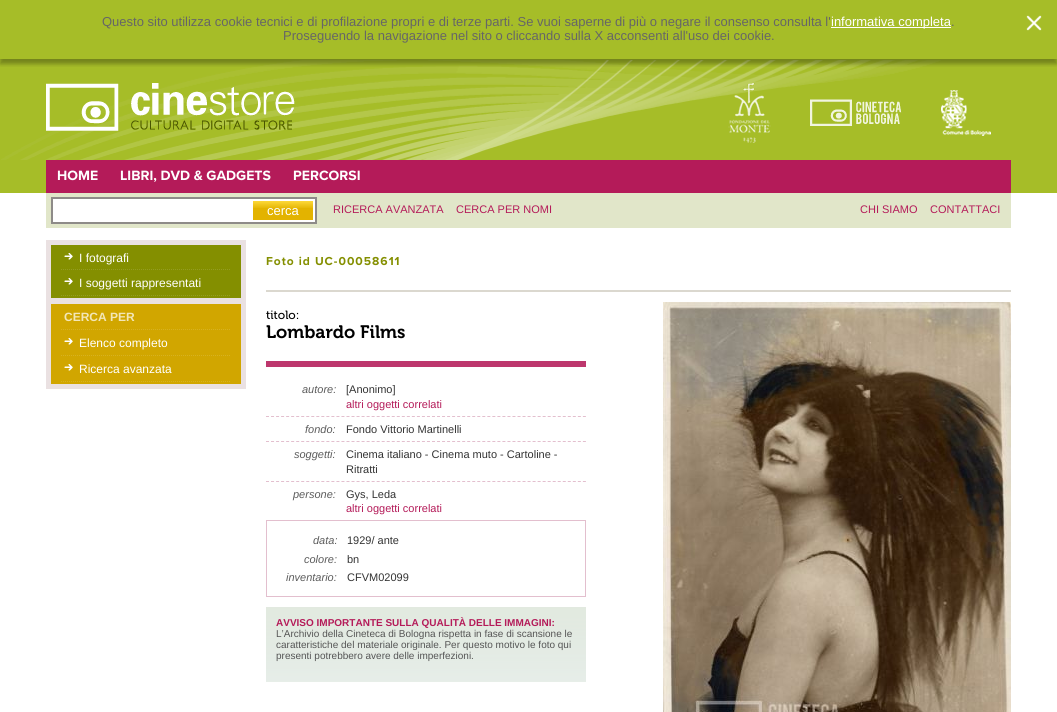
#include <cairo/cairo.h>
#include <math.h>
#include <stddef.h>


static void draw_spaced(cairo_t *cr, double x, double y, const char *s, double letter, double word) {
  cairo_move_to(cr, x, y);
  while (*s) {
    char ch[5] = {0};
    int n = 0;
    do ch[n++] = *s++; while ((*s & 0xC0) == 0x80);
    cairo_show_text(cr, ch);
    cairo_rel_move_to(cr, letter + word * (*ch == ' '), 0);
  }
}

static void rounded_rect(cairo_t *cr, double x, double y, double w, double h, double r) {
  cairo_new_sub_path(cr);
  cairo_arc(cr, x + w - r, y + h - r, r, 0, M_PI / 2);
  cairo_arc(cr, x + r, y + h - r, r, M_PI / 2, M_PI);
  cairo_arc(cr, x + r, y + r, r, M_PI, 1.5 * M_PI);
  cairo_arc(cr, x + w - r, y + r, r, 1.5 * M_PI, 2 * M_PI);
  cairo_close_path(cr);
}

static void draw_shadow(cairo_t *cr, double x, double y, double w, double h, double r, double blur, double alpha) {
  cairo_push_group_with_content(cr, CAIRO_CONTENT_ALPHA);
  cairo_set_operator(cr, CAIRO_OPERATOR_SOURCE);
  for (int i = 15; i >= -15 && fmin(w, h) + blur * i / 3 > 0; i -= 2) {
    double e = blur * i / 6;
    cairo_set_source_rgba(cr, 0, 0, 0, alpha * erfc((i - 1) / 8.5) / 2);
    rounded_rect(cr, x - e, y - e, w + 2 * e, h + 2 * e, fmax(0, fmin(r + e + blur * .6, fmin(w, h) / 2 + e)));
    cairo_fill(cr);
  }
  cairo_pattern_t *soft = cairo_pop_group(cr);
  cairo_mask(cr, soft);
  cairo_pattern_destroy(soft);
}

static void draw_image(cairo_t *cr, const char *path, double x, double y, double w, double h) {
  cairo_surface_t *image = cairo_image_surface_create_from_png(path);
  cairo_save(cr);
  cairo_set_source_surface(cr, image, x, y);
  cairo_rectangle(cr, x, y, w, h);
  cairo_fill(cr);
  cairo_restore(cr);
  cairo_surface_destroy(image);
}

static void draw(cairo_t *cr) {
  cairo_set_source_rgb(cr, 166 / 255.0, 189 / 255.0, 40 / 255.0);
  cairo_paint(cr);
  draw_image(cr, "images/2.png", 1, 60, 940, 100);
  cairo_save(cr);
  cairo_rectangle(cr, 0, 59, 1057, 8);
  cairo_clip(cr);
  cairo_set_source_rgb(cr, 0, 0, 0);
  draw_shadow(cr, 0, 5, 1057, 59, 0, 2, 0.3);
  cairo_restore(cr);
  cairo_set_source_rgb(cr, 1, 1, 1);
  cairo_rectangle(cr, 831, 27, 120, 1);
  cairo_fill(cr);
  draw_image(cr, "images/1.png", 1026, 15, 16, 16);
  draw_image(cr, "images/3.png", 46, 83, 249, 48);
  draw_image(cr, "images/4.png", 728, 83, 43, 60);
  draw_image(cr, "images/5.png", 810, 99, 92, 27);
  draw_image(cr, "images/6.png", 941, 90, 50, 46);
  cairo_set_source_rgb(cr, 180 / 255.0, 27 / 255.0, 89 / 255.0);
  cairo_rectangle(cr, 46, 160, 965, 33);
  cairo_fill(cr);
  cairo_set_source_rgb(cr, 1, 1, 1);
  cairo_rectangle(cr, 0, 193, 1057, 519);
  cairo_fill(cr);
  cairo_set_source_rgb(cr, 225 / 255.0, 230 / 255.0, 201 / 255.0);
  cairo_rectangle(cr, 46, 193, 965, 35);
  cairo_fill(cr);
  cairo_set_source_rgb(cr, 1, 1, 1);
  cairo_rectangle(cr, 52, 198, 264, 25);
  cairo_fill_preserve(cr);
  cairo_set_source_rgb(cr, 142 / 255.0, 139 / 255.0, 136 / 255.0);
  cairo_stroke(cr);
  cairo_set_source_rgb(cr, 227 / 255.0, 179 / 255.0, 0);
  cairo_rectangle(cr, 253, 208, 60, 12);
  cairo_fill(cr);
  draw_image(cr, "images/7.png", 253, 201, 60, 7);
  cairo_set_source_rgb(cr, 132 / 255.0, 143 / 255.0, 0);
  cairo_rectangle(cr, 48.5, 242.5, 195, 58);
  cairo_fill_preserve(cr);
  cairo_set_source_rgb(cr, 234 / 255.0, 225 / 255.0, 226 / 255.0);
  cairo_set_line_width(cr, 5);
  cairo_stroke(cr);
  cairo_new_path(cr);
  cairo_move_to(cr, 61, 269.5);
  cairo_line_to(cr, 231, 269.5);
  cairo_set_source_rgb(cr, 148 / 255.0, 157 / 255.0, 33 / 255.0);
  cairo_set_line_width(cr, 1);
  cairo_set_dash(cr, (double[]){1, 1}, 2, 0);
  cairo_stroke(cr);
  draw_image(cr, "images/8.png", 64, 253, 9, 7);
  cairo_new_path(cr);
  cairo_move_to(cr, 61, 295.5);
  cairo_line_to(cr, 231, 295.5);
  cairo_stroke(cr);
  draw_image(cr, "images/8.png", 64, 278, 9, 7);
  cairo_set_source_rgb(cr, 209 / 255.0, 166 / 255.0, 0);
  cairo_rectangle(cr, 51, 304, 190, 80);
  cairo_fill(cr);
  cairo_set_source_rgb(cr, 234 / 255.0, 225 / 255.0, 226 / 255.0);
  cairo_rectangle(cr, 46, 303, 200, 1);
  cairo_fill(cr);
  cairo_rectangle(cr, 241, 303, 5, 86);
  cairo_fill(cr);
  cairo_rectangle(cr, 46, 384, 200, 5);
  cairo_fill(cr);
  cairo_rectangle(cr, 46, 303, 5, 86);
  cairo_fill(cr);
  cairo_new_path(cr);
  cairo_move_to(cr, 61, 329.5);
  cairo_line_to(cr, 231, 329.5);
  cairo_set_source_rgb(cr, 215 / 255.0, 178 / 255.0, 33 / 255.0);
  cairo_stroke(cr);
  cairo_new_path(cr);
  cairo_move_to(cr, 61, 355.5);
  cairo_line_to(cr, 231, 355.5);
  cairo_stroke(cr);
  draw_image(cr, "images/9.png", 64, 338, 9, 7);
  cairo_new_path(cr);
  cairo_move_to(cr, 61, 381.5);
  cairo_line_to(cr, 231, 381.5);
  cairo_stroke(cr);
  draw_image(cr, "images/9.png", 64, 364, 9, 7);
  cairo_set_source_rgb(cr, 219 / 255.0, 216 / 255.0, 207 / 255.0);
  cairo_rectangle(cr, 266, 290, 745, 2);
  cairo_fill(cr);
  cairo_set_source_rgb(cr, 189 / 255.0, 55 / 255.0, 109 / 255.0);
  cairo_rectangle(cr, 266, 361, 320, 6);
  cairo_fill(cr);
  cairo_new_path(cr);
  cairo_move_to(cr, 266, 416.5);
  cairo_line_to(cr, 586, 416.5);
  cairo_set_source_rgb(cr, 227 / 255.0, 191 / 255.0, 206 / 255.0);
  cairo_set_dash(cr, (double[]){3, 2.03}, 2, 0);
  cairo_stroke(cr);
  cairo_new_path(cr);
  cairo_move_to(cr, 266, 441.5);
  cairo_line_to(cr, 586, 441.5);
  cairo_stroke(cr);
  cairo_new_path(cr);
  cairo_move_to(cr, 266, 481.5);
  cairo_line_to(cr, 586, 481.5);
  cairo_stroke(cr);
  cairo_rectangle(cr, 266.5, 520.5, 319, 76);
  cairo_set_dash(cr, NULL, 0, 0);
  cairo_stroke(cr);
  draw_image(cr, "images/10.png", 266, 607, 320, 75);
  draw_image(cr, "images/11.png", 663, 302, 348, 410);
  cairo_select_font_face(cr, "Liberation Sans", CAIRO_FONT_SLANT_NORMAL, CAIRO_FONT_WEIGHT_NORMAL);
  cairo_set_font_size(cr, 13);
  cairo_set_source_rgb(cr, 102 / 255.0, 102 / 255.0, 102 / 255.0);
  cairo_move_to(cr, 102, 26);
  cairo_show_text(cr, "Questo sito utilizza cookie tecnici e di profilazione propri e di terze parti. Se vuoi saperne di più o negare il consenso consulta l'");
  cairo_set_source_rgb(cr, 1, 1, 1);
  cairo_move_to(cr, 831, 26);
  cairo_show_text(cr, "informativa completa");
  cairo_set_source_rgb(cr, 102 / 255.0, 102 / 255.0, 102 / 255.0);
  cairo_move_to(cr, 951, 26);
  cairo_show_text(cr, ".");
  cairo_move_to(cr, 283, 40);
  cairo_show_text(cr, "Proseguendo la navigazione nel sito o cliccando sulla X acconsenti all'uso dei cookie.");
  cairo_select_font_face(cr, "Proxima Nova", CAIRO_FONT_SLANT_NORMAL, CAIRO_FONT_WEIGHT_BOLD);
  cairo_set_font_size(cr, 14);
  cairo_set_source_rgb(cr, 1, 1, 1);
  cairo_move_to(cr, 57, 180);
  cairo_show_text(cr, "HOME");
  cairo_move_to(cr, 120, 180);
  cairo_show_text(cr, "LIBRI, DVD & GADGETS");
  cairo_move_to(cr, 293, 180);
  cairo_show_text(cr, "PERCORSI");
  cairo_select_font_face(cr, "Liberation Sans", CAIRO_FONT_SLANT_NORMAL, CAIRO_FONT_WEIGHT_NORMAL);
  cairo_set_font_size(cr, 13);
  cairo_move_to(cr, 267, 215);
  cairo_show_text(cr, "cerca");
  cairo_set_font_size(cr, 11);
  cairo_set_source_rgb(cr, 180 / 255.0, 27 / 255.0, 89 / 255.0);
  cairo_move_to(cr, 333, 213);
  cairo_show_text(cr, "RICERCA AVANZATA");
  cairo_move_to(cr, 456, 213);
  cairo_show_text(cr, "CERCA PER NOMI");
  cairo_move_to(cr, 860, 213);
  cairo_show_text(cr, "CHI SIAMO");
  cairo_move_to(cr, 930, 213);
  cairo_show_text(cr, "CONTATTACI");
  cairo_set_font_size(cr, 12);
  cairo_set_source_rgb(cr, 1, 1, 1);
  cairo_move_to(cr, 79, 262);
  cairo_show_text(cr, "I fotografi");
  cairo_move_to(cr, 79, 287);
  cairo_show_text(cr, "I soggetti rappresentati");
  cairo_select_font_face(cr, "Liberation Sans", CAIRO_FONT_SLANT_NORMAL, CAIRO_FONT_WEIGHT_BOLD);
  cairo_set_source_rgb(cr, 242 / 255.0, 230 / 255.0, 184 / 255.0);
  cairo_move_to(cr, 64, 321);
  cairo_show_text(cr, "CERCA PER");
  cairo_select_font_face(cr, "Liberation Sans", CAIRO_FONT_SLANT_NORMAL, CAIRO_FONT_WEIGHT_NORMAL);
  cairo_set_source_rgb(cr, 1, 1, 1);
  cairo_move_to(cr, 79, 347);
  cairo_show_text(cr, "Elenco completo");
  cairo_move_to(cr, 79, 373);
  cairo_show_text(cr, "Ricerca avanzata");
  cairo_select_font_face(cr, "Proxima Nova", CAIRO_FONT_SLANT_NORMAL, CAIRO_FONT_WEIGHT_BOLD);
  cairo_set_source_rgb(cr, 132 / 255.0, 143 / 255.0, 0);
  draw_spaced(cr, 266, 265, "Foto id UC-00058611", 1, 0);
  cairo_select_font_face(cr, "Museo", CAIRO_FONT_SLANT_NORMAL, CAIRO_FONT_WEIGHT_NORMAL);
  cairo_set_source_rgb(cr, 0, 0, 0);
  cairo_move_to(cr, 266, 319);
  cairo_show_text(cr, "titolo:");
  cairo_select_font_face(cr, "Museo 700 SemiBold", CAIRO_FONT_SLANT_NORMAL, CAIRO_FONT_WEIGHT_NORMAL);
  cairo_set_font_size(cr, 18);
  cairo_move_to(cr, 266, 338);
  cairo_show_text(cr, "Lombardo Films");
  cairo_select_font_face(cr, "Liberation Sans", CAIRO_FONT_SLANT_ITALIC, CAIRO_FONT_WEIGHT_NORMAL);
  cairo_set_font_size(cr, 11);
  cairo_set_source_rgb(cr, 92 / 255.0, 92 / 255.0, 92 / 255.0);
  cairo_move_to(cr, 302, 393);
  cairo_show_text(cr, "autore:");
  cairo_select_font_face(cr, "Liberation Sans", CAIRO_FONT_SLANT_NORMAL, CAIRO_FONT_WEIGHT_NORMAL);
  cairo_set_source_rgb(cr, 51 / 255.0, 51 / 255.0, 51 / 255.0);
  cairo_move_to(cr, 346, 393);
  cairo_show_text(cr, "[Anonimo]");
  cairo_set_source_rgb(cr, 180 / 255.0, 27 / 255.0, 89 / 255.0);
  cairo_move_to(cr, 346, 408);
  cairo_show_text(cr, "altri oggetti correlati");
  cairo_select_font_face(cr, "Liberation Sans", CAIRO_FONT_SLANT_ITALIC, CAIRO_FONT_WEIGHT_NORMAL);
  cairo_set_source_rgb(cr, 92 / 255.0, 92 / 255.0, 92 / 255.0);
  cairo_move_to(cr, 305, 433);
  cairo_show_text(cr, "fondo:");
  cairo_select_font_face(cr, "Liberation Sans", CAIRO_FONT_SLANT_NORMAL, CAIRO_FONT_WEIGHT_NORMAL);
  cairo_set_source_rgb(cr, 51 / 255.0, 51 / 255.0, 51 / 255.0);
  cairo_move_to(cr, 346, 433);
  cairo_show_text(cr, "Fondo Vittorio Martinelli");
  cairo_select_font_face(cr, "Liberation Sans", CAIRO_FONT_SLANT_ITALIC, CAIRO_FONT_WEIGHT_NORMAL);
  cairo_set_source_rgb(cr, 92 / 255.0, 92 / 255.0, 92 / 255.0);
  cairo_move_to(cr, 294, 458);
  cairo_show_text(cr, "soggetti:");
  cairo_select_font_face(cr, "Liberation Sans", CAIRO_FONT_SLANT_NORMAL, CAIRO_FONT_WEIGHT_NORMAL);
  cairo_set_source_rgb(cr, 51 / 255.0, 51 / 255.0, 51 / 255.0);
  cairo_move_to(cr, 346, 458);
  cairo_show_text(cr, "Cinema italiano - Cinema muto - Cartoline -");
  cairo_move_to(cr, 346, 473);
  cairo_show_text(cr, "Ritratti");
  cairo_select_font_face(cr, "Liberation Sans", CAIRO_FONT_SLANT_ITALIC, CAIRO_FONT_WEIGHT_NORMAL);
  cairo_set_source_rgb(cr, 92 / 255.0, 92 / 255.0, 92 / 255.0);
  cairo_move_to(cr, 293, 498);
  cairo_show_text(cr, "persone:");
  cairo_select_font_face(cr, "Liberation Sans", CAIRO_FONT_SLANT_NORMAL, CAIRO_FONT_WEIGHT_NORMAL);
  cairo_set_source_rgb(cr, 51 / 255.0, 51 / 255.0, 51 / 255.0);
  cairo_move_to(cr, 346, 498);
  cairo_show_text(cr, "Gys, Leda");
  cairo_set_source_rgb(cr, 180 / 255.0, 27 / 255.0, 89 / 255.0);
  cairo_move_to(cr, 346, 512);
  cairo_show_text(cr, "altri oggetti correlati");
  cairo_select_font_face(cr, "Liberation Sans", CAIRO_FONT_SLANT_ITALIC, CAIRO_FONT_WEIGHT_NORMAL);
  cairo_set_source_rgb(cr, 92 / 255.0, 92 / 255.0, 92 / 255.0);
  cairo_move_to(cr, 313, 544);
  cairo_show_text(cr, "data:");
  cairo_select_font_face(cr, "Liberation Sans", CAIRO_FONT_SLANT_NORMAL, CAIRO_FONT_WEIGHT_NORMAL);
  cairo_set_source_rgb(cr, 51 / 255.0, 51 / 255.0, 51 / 255.0);
  cairo_move_to(cr, 347, 544);
  cairo_show_text(cr, "1929/ ante");
  cairo_select_font_face(cr, "Liberation Sans", CAIRO_FONT_SLANT_ITALIC, CAIRO_FONT_WEIGHT_NORMAL);
  cairo_set_source_rgb(cr, 92 / 255.0, 92 / 255.0, 92 / 255.0);
  cairo_move_to(cr, 304, 563);
  cairo_show_text(cr, "colore:");
  cairo_select_font_face(cr, "Liberation Sans", CAIRO_FONT_SLANT_NORMAL, CAIRO_FONT_WEIGHT_NORMAL);
  cairo_set_source_rgb(cr, 51 / 255.0, 51 / 255.0, 51 / 255.0);
  cairo_move_to(cr, 347, 563);
  cairo_show_text(cr, "bn");
  cairo_select_font_face(cr, "Liberation Sans", CAIRO_FONT_SLANT_ITALIC, CAIRO_FONT_WEIGHT_NORMAL);
  cairo_set_source_rgb(cr, 92 / 255.0, 92 / 255.0, 92 / 255.0);
  cairo_move_to(cr, 286, 581);
  cairo_show_text(cr, "inventario:");
  cairo_select_font_face(cr, "Liberation Sans", CAIRO_FONT_SLANT_NORMAL, CAIRO_FONT_WEIGHT_NORMAL);
  cairo_set_source_rgb(cr, 51 / 255.0, 51 / 255.0, 51 / 255.0);
  cairo_move_to(cr, 347, 581);
  cairo_show_text(cr, "CFVM02099");
  cairo_select_font_face(cr, "Liberation Sans", CAIRO_FONT_SLANT_NORMAL, CAIRO_FONT_WEIGHT_BOLD);
  cairo_set_font_size(cr, 10);
  cairo_set_source_rgb(cr, 180 / 255.0, 27 / 255.0, 89 / 255.0);
  cairo_move_to(cr, 276, 626);
  cairo_show_text(cr, "AVVISO IMPORTANTE SULLA QUALITÀ DELLE IMMAGINI:");
  cairo_select_font_face(cr, "Liberation Sans", CAIRO_FONT_SLANT_NORMAL, CAIRO_FONT_WEIGHT_NORMAL);
  cairo_set_source_rgb(cr, 85 / 255.0, 85 / 255.0, 85 / 255.0);
  cairo_move_to(cr, 276, 637);
  cairo_show_text(cr, "L’Archivio della Cineteca di Bologna rispetta in fase di scansione le");
  cairo_move_to(cr, 276, 648);
  cairo_show_text(cr, "caratteristiche del materiale originale. Per questo motivo le foto qui");
  cairo_move_to(cr, 276, 659);
  cairo_show_text(cr, "presenti potrebbero avere delle imperfezioni.");
}

int main(void) {
  cairo_surface_t *surface = cairo_image_surface_create(CAIRO_FORMAT_RGB24, 1057, 712);
  cairo_t *cr = cairo_create(surface);
  cairo_font_options_t *options = cairo_font_options_create();
  cairo_font_options_set_hint_metrics(options, CAIRO_HINT_METRICS_OFF);
  cairo_font_options_set_hint_style(options, CAIRO_HINT_STYLE_NONE);
  cairo_set_font_options(cr, options);
  cairo_set_miter_limit(cr, 4);
  draw(cr);
  cairo_surface_write_to_png(surface, "out.png");
  cairo_font_options_destroy(options);
  cairo_destroy(cr);
  cairo_surface_destroy(surface);
  return 0;
}
